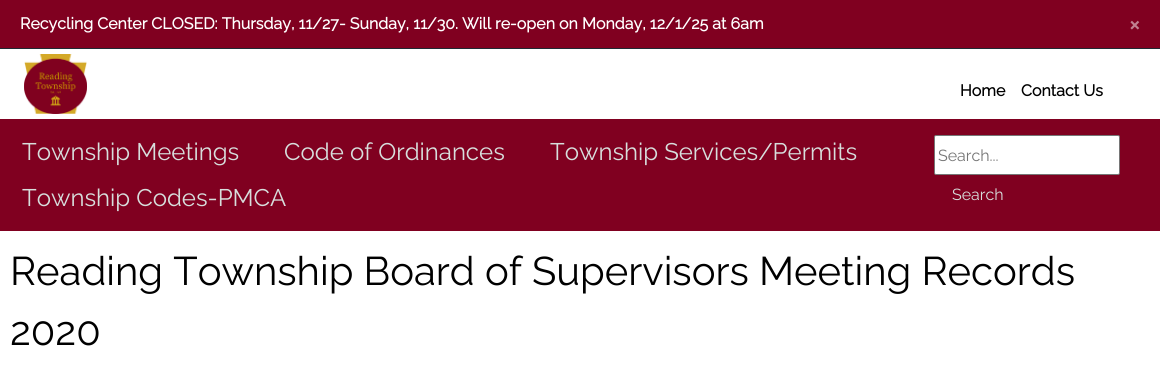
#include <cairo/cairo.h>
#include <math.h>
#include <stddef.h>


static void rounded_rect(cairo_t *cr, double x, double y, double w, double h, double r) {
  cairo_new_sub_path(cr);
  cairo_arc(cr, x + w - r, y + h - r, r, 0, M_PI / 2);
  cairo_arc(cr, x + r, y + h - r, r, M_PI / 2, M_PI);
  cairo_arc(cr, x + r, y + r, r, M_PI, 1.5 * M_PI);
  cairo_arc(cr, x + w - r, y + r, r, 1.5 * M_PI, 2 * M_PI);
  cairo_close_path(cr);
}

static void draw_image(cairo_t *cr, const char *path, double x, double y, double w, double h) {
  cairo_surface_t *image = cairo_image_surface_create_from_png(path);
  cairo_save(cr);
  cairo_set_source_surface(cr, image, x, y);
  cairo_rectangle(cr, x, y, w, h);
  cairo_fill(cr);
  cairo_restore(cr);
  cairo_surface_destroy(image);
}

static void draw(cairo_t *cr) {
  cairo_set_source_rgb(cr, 1, 1, 1);
  cairo_paint(cr);
  cairo_set_source_rgb(cr, 128 / 255.0, 0, 32 / 255.0);
  cairo_rectangle(cr, 0, 0, 1160, 48);
  cairo_fill(cr);
  cairo_set_source_rgb(cr, 31 / 255.0, 41 / 255.0, 51 / 255.0);
  cairo_rectangle(cr, 0, 48, 1160, 1);
  cairo_fill(cr);
  draw_image(cr, "images/1.png", 24, 54, 63, 60);
  cairo_set_source_rgb(cr, 128 / 255.0, 0, 32 / 255.0);
  cairo_rectangle(cr, 0, 119, 1160, 112);
  cairo_fill(cr);
  cairo_set_source_rgb(cr, 1, 1, 1);
  rounded_rect(cr, 934.5, 135.5, 185, 39, 1.5);
  cairo_fill_preserve(cr);
  cairo_set_source_rgb(cr, 118 / 255.0, 118 / 255.0, 118 / 255.0);
  cairo_set_line_width(cr, 1);
  cairo_stroke(cr);
  cairo_select_font_face(cr, "Raleway", CAIRO_FONT_SLANT_NORMAL, CAIRO_FONT_WEIGHT_BOLD);
  cairo_set_font_size(cr, 16);
  cairo_set_source_rgb(cr, 1, 1, 1);
  cairo_move_to(cr, 20, 29);
  cairo_show_text(cr, "Recycling Center CLOSED: Thursday, 11/27- Sunday, 11/30. Will re-open on Monday, 12/1/25 at 6am");
  cairo_set_font_size(cr, 24);
  cairo_set_source_rgb(cr, 192 / 255.0, 128 / 255.0, 144 / 255.0);
  cairo_move_to(cr, 1129, 32);
  cairo_show_text(cr, "×");
  cairo_set_font_size(cr, 16);
  cairo_set_source_rgb(cr, 0, 0, 0);
  cairo_move_to(cr, 960, 96);
  cairo_show_text(cr, "Home");
  cairo_move_to(cr, 1021, 96);
  cairo_show_text(cr, "Contact Us");
  cairo_select_font_face(cr, "Raleway Thin", CAIRO_FONT_SLANT_NORMAL, CAIRO_FONT_WEIGHT_NORMAL);
  cairo_set_font_size(cr, 24);
  cairo_set_source_rgb(cr, 215 / 255.0, 222 / 255.0, 220 / 255.0);
  cairo_move_to(cr, 22, 160);
  cairo_show_text(cr, "Township Meetings");
  cairo_move_to(cr, 284, 160);
  cairo_show_text(cr, "Code of Ordinances");
  cairo_move_to(cr, 550, 160);
  cairo_show_text(cr, "Township Services/Permits");
  cairo_move_to(cr, 22, 206);
  cairo_show_text(cr, "Township Codes-PMCA");
  cairo_set_font_size(cr, 16);
  cairo_set_source_rgb(cr, 117 / 255.0, 117 / 255.0, 117 / 255.0);
  cairo_move_to(cr, 938, 161);
  cairo_show_text(cr, "Search...");
  cairo_set_source_rgb(cr, 215 / 255.0, 222 / 255.0, 220 / 255.0);
  cairo_move_to(cr, 952, 200);
  cairo_show_text(cr, "Search");
  cairo_set_font_size(cr, 40);
  cairo_set_source_rgb(cr, 0, 0, 0);
  cairo_move_to(cr, 10, 285);
  cairo_show_text(cr, "Reading Township Board of Supervisors Meeting Records");
  cairo_move_to(cr, 10, 345);
  cairo_show_text(cr, "2020");
}

int main(void) {
  cairo_surface_t *surface = cairo_image_surface_create(CAIRO_FORMAT_RGB24, 1160, 368);
  cairo_t *cr = cairo_create(surface);
  cairo_font_options_t *options = cairo_font_options_create();
  cairo_font_options_set_hint_metrics(options, CAIRO_HINT_METRICS_OFF);
  cairo_font_options_set_hint_style(options, CAIRO_HINT_STYLE_NONE);
  cairo_set_font_options(cr, options);
  cairo_set_miter_limit(cr, 4);
  draw(cr);
  cairo_surface_write_to_png(surface, "out.png");
  cairo_font_options_destroy(options);
  cairo_destroy(cr);
  cairo_surface_destroy(surface);
  return 0;
}
